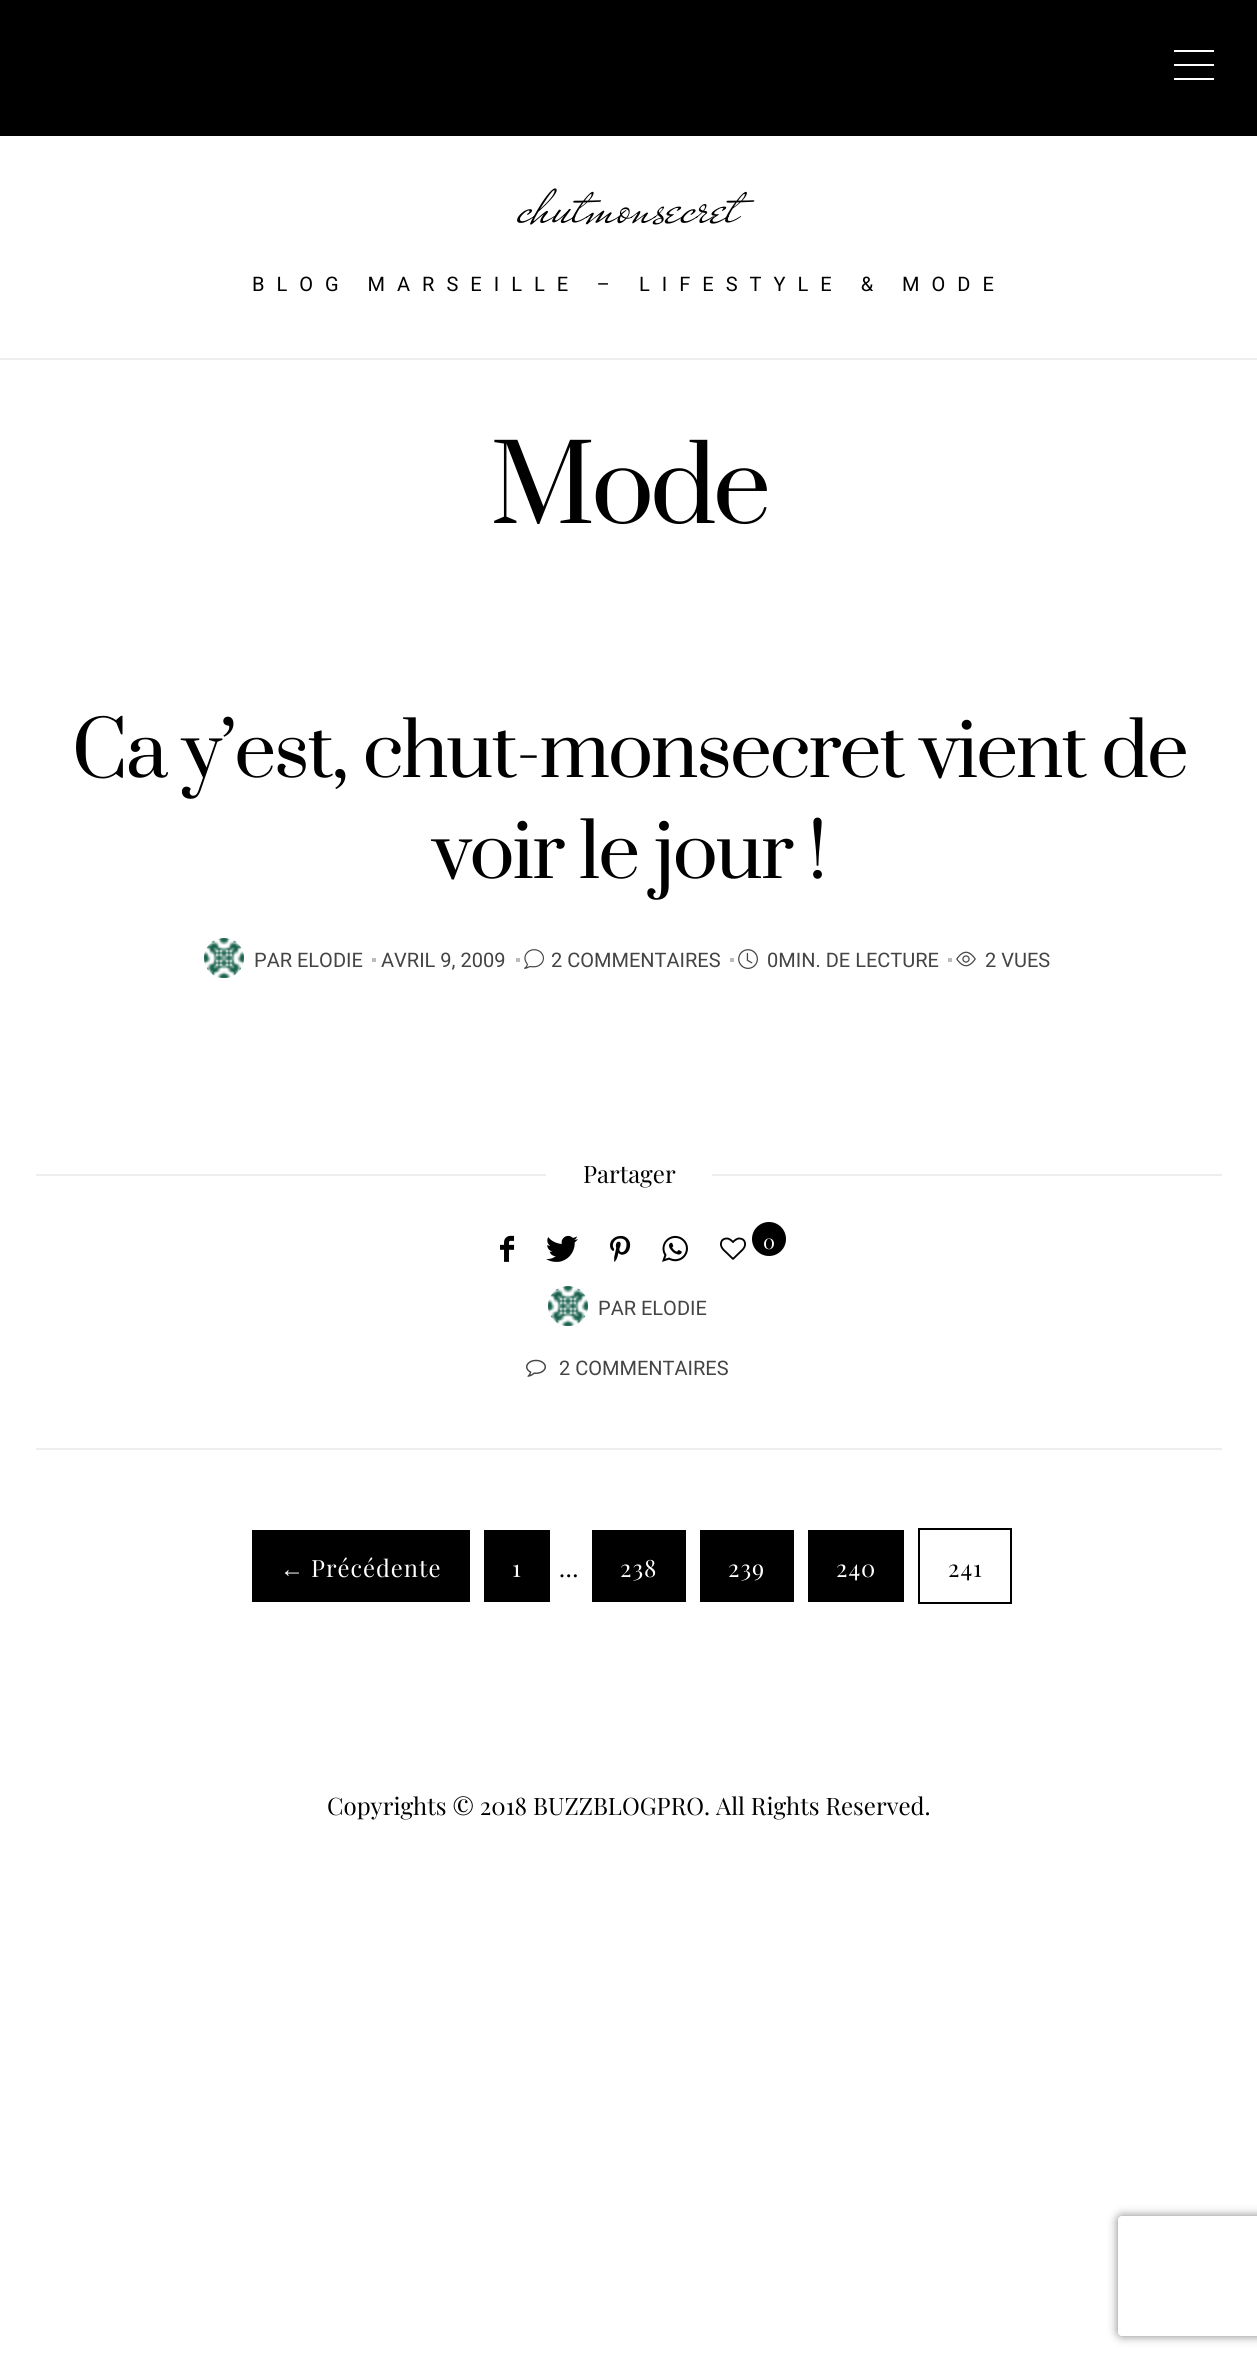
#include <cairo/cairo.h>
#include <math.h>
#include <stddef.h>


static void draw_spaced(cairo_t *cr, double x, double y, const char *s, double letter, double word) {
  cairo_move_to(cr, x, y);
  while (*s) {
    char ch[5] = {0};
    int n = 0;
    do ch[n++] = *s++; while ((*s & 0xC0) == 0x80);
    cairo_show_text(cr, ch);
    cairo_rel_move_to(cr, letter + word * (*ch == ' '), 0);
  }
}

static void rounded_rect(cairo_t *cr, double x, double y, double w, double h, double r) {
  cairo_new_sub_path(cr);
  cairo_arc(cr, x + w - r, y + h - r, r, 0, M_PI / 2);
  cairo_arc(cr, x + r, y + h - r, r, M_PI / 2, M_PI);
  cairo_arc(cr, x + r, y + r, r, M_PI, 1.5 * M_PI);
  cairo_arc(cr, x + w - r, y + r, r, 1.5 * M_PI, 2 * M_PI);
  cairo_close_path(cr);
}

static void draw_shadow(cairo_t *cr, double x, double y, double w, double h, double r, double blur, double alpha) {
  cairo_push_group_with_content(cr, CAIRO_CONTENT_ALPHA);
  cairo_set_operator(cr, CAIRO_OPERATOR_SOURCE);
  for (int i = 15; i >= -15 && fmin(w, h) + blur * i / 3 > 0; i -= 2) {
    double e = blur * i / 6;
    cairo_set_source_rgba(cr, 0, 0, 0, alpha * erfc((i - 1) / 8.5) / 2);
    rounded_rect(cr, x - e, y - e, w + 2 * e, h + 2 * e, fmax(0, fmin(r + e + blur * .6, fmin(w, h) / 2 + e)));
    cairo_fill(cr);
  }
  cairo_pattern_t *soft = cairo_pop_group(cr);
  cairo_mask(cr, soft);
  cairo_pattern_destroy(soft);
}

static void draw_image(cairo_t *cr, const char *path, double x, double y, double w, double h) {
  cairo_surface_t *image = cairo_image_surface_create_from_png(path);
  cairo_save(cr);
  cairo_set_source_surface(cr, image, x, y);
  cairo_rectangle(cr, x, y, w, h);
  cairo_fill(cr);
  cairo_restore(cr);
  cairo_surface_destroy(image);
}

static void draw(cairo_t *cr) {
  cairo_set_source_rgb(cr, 1, 1, 1);
  cairo_paint(cr);
  cairo_set_source_rgb(cr, 0, 0, 0);
  cairo_rectangle(cr, 0, 0, 1257, 136);
  cairo_fill(cr);
  cairo_set_source_rgb(cr, 1, 1, 1);
  cairo_rectangle(cr, 1174, 64, 40, 2);
  cairo_fill(cr);
  cairo_rectangle(cr, 1174, 50, 40, 2);
  cairo_fill(cr);
  cairo_rectangle(cr, 1174, 78, 40, 2);
  cairo_fill(cr);
  cairo_set_source_rgb(cr, 238 / 255.0, 238 / 255.0, 238 / 255.0);
  cairo_rectangle(cr, 0, 358, 1257, 2);
  cairo_fill(cr);
  draw_image(cr, "images/1.png", 204, 938, 40, 40);
  cairo_set_source_rgb(cr, 187 / 255.0, 187 / 255.0, 187 / 255.0);
  cairo_rectangle(cr, 372, 958, 4, 4);
  cairo_fill(cr);
  cairo_rectangle(cr, 516, 958, 4, 4);
  cairo_fill(cr);
  draw_image(cr, "images/2.png", 524, 949, 20, 20);
  cairo_rectangle(cr, 730, 958, 4, 4);
  cairo_fill(cr);
  draw_image(cr, "images/3.png", 738, 949, 20, 20);
  cairo_rectangle(cr, 948, 958, 4, 4);
  cairo_fill(cr);
  draw_image(cr, "images/4.png", 956, 951, 20, 16);
  cairo_set_source_rgb(cr, 238 / 255.0, 238 / 255.0, 238 / 255.0);
  cairo_rectangle(cr, 36, 1448, 1186, 2);
  cairo_fill(cr);
  cairo_rectangle(cr, 36, 1174, 510, 2);
  cairo_fill(cr);
  cairo_rectangle(cr, 712, 1174, 510, 2);
  cairo_fill(cr);
  draw_image(cr, "images/5.png", 500, 1235, 15, 27);
  draw_image(cr, "images/6.png", 546, 1235, 32, 27);
  draw_image(cr, "images/7.png", 610, 1235, 21, 27);
  draw_image(cr, "images/8.png", 662, 1235, 26, 27);
  draw_image(cr, "images/9.png", 720, 1237, 26, 23);
  cairo_set_source_rgb(cr, 0, 0, 0);
  cairo_arc(cr, 769, 1239, 17, 0, 2 * M_PI);
  cairo_fill(cr);
  draw_image(cr, "images/1.png", 548, 1286, 40, 40);
  draw_image(cr, "images/10.png", 526, 1359, 20, 18);
  cairo_rectangle(cr, 252, 1530, 218, 72);
  cairo_fill(cr);
  cairo_rectangle(cr, 484, 1530, 66, 72);
  cairo_fill(cr);
  cairo_rectangle(cr, 592, 1530, 94, 72);
  cairo_fill(cr);
  cairo_rectangle(cr, 700, 1530, 94, 72);
  cairo_fill(cr);
  cairo_rectangle(cr, 808, 1530, 96, 72);
  cairo_fill(cr);
  cairo_rectangle(cr, 919, 1529, 92, 74);
  cairo_stroke(cr);
  cairo_save(cr);
  cairo_set_fill_rule(cr, CAIRO_FILL_RULE_EVEN_ODD);
  cairo_new_path(cr);
  cairo_move_to(cr, 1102, 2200);
  cairo_line_to(cr, 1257, 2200);
  cairo_line_to(cr, 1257, 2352);
  cairo_line_to(cr, 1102, 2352);
  cairo_close_path(cr);
  cairo_move_to(cr, 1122, 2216);
  cairo_line_to(cr, 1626, 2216);
  cairo_curve_to(cr, 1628, 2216, 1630, 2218, 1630, 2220);
  cairo_line_to(cr, 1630, 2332);
  cairo_curve_to(cr, 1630, 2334, 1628, 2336, 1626, 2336);
  cairo_line_to(cr, 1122, 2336);
  cairo_curve_to(cr, 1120, 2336, 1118, 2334, 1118, 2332);
  cairo_line_to(cr, 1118, 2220);
  cairo_curve_to(cr, 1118, 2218, 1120, 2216, 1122, 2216);
  cairo_close_path(cr);
  cairo_clip(cr);
  cairo_set_source_rgb(cr, 128 / 255.0, 128 / 255.0, 128 / 255.0);
  draw_shadow(cr, 1118, 2216, 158, 120, 4, 5, 1);
  cairo_restore(cr);
  cairo_select_font_face(cr, "Mr De Haviland", CAIRO_FONT_SLANT_NORMAL, CAIRO_FONT_WEIGHT_NORMAL);
  cairo_set_font_size(cr, 64.5);
  cairo_move_to(cr, 518, 222);
  cairo_show_text(cr, "chutmonsecret");
  cairo_select_font_face(cr, "Heebo", CAIRO_FONT_SLANT_NORMAL, CAIRO_FONT_WEIGHT_NORMAL);
  cairo_set_font_size(cr, 20);
  draw_spaced(cr, 252, 291, "BLOG MARSEILLE – LIFESTYLE & MODE", 12, 0);
  cairo_select_font_face(cr, "Prata", CAIRO_FONT_SLANT_NORMAL, CAIRO_FONT_WEIGHT_NORMAL);
  cairo_set_font_size(cr, 104);
  draw_spaced(cr, 490, 523, "Mode", -4, 0);
  cairo_set_font_size(cr, 74.6);
  draw_spaced(cr, 72, 777, "Ca y’est, chut-monsecret vient de", -2, 0);
  draw_spaced(cr, 432, 878, "voir le jour !", -2, 0);
  cairo_select_font_face(cr, "Heebo", CAIRO_FONT_SLANT_NORMAL, CAIRO_FONT_WEIGHT_NORMAL);
  cairo_set_font_size(cr, 20);
  cairo_set_source_rgb(cr, 68 / 255.0, 68 / 255.0, 68 / 255.0);
  cairo_move_to(cr, 254, 967);
  cairo_show_text(cr, "PAR ELODIE");
  cairo_move_to(cr, 381, 967);
  cairo_show_text(cr, "AVRIL 9, 2009");
  cairo_move_to(cr, 551, 967);
  cairo_show_text(cr, "2 COMMENTAIRES");
  cairo_move_to(cr, 767, 967);
  cairo_show_text(cr, "0MIN. DE LECTURE");
  cairo_move_to(cr, 985, 967);
  cairo_show_text(cr, "2 VUES");
  cairo_select_font_face(cr, "Playfair Display", CAIRO_FONT_SLANT_NORMAL, CAIRO_FONT_WEIGHT_NORMAL);
  cairo_set_font_size(cr, 24);
  cairo_set_source_rgb(cr, 0, 0, 0);
  cairo_move_to(cr, 583, 1183);
  cairo_show_text(cr, "Partager");
  cairo_set_font_size(cr, 20);
  cairo_set_source_rgb(cr, 1, 1, 1);
  cairo_move_to(cr, 763, 1249);
  cairo_show_text(cr, "0");
  cairo_select_font_face(cr, "Heebo", CAIRO_FONT_SLANT_NORMAL, CAIRO_FONT_WEIGHT_NORMAL);
  cairo_set_source_rgb(cr, 68 / 255.0, 68 / 255.0, 68 / 255.0);
  cairo_move_to(cr, 598, 1315);
  cairo_show_text(cr, "PAR ELODIE");
  cairo_move_to(cr, 559, 1375);
  cairo_show_text(cr, "2 COMMENTAIRES");
  cairo_select_font_face(cr, "Liberation Serif", CAIRO_FONT_SLANT_NORMAL, CAIRO_FONT_WEIGHT_NORMAL);
  cairo_set_font_size(cr, 23.75);
  cairo_set_source_rgb(cr, 1, 1, 1);
  draw_spaced(cr, 280, 1577, "←", 1, 0);
  cairo_select_font_face(cr, "Playfair Display", CAIRO_FONT_SLANT_NORMAL, CAIRO_FONT_WEIGHT_NORMAL);
  draw_spaced(cr, 311, 1577, "Précédente", 1, 0);
  draw_spaced(cr, 512, 1577, "1", 1, 0);
  cairo_set_source_rgb(cr, 0, 0, 0);
  draw_spaced(cr, 559, 1577, "…", 1, 0);
  cairo_set_source_rgb(cr, 1, 1, 1);
  draw_spaced(cr, 620, 1577, "238", 1, 0);
  draw_spaced(cr, 728, 1577, "239", 1, 0);
  draw_spaced(cr, 836, 1577, "240", 1, 0);
  cairo_set_source_rgb(cr, 0, 0, 0);
  draw_spaced(cr, 948, 1577, "241", 1, 0);
  cairo_set_font_size(cr, 24);
  cairo_move_to(cr, 327, 1815);
  cairo_show_text(cr, "Copyrights © 2018 BUZZBLOGPRO. All Rights Reserved.");
}

int main(void) {
  cairo_surface_t *surface = cairo_image_surface_create(CAIRO_FORMAT_RGB24, 1257, 2363);
  cairo_t *cr = cairo_create(surface);
  cairo_font_options_t *options = cairo_font_options_create();
  cairo_font_options_set_hint_metrics(options, CAIRO_HINT_METRICS_OFF);
  cairo_font_options_set_hint_style(options, CAIRO_HINT_STYLE_NONE);
  cairo_set_font_options(cr, options);
  cairo_set_miter_limit(cr, 4);
  draw(cr);
  cairo_surface_write_to_png(surface, "out.png");
  cairo_font_options_destroy(options);
  cairo_destroy(cr);
  cairo_surface_destroy(surface);
  return 0;
}
